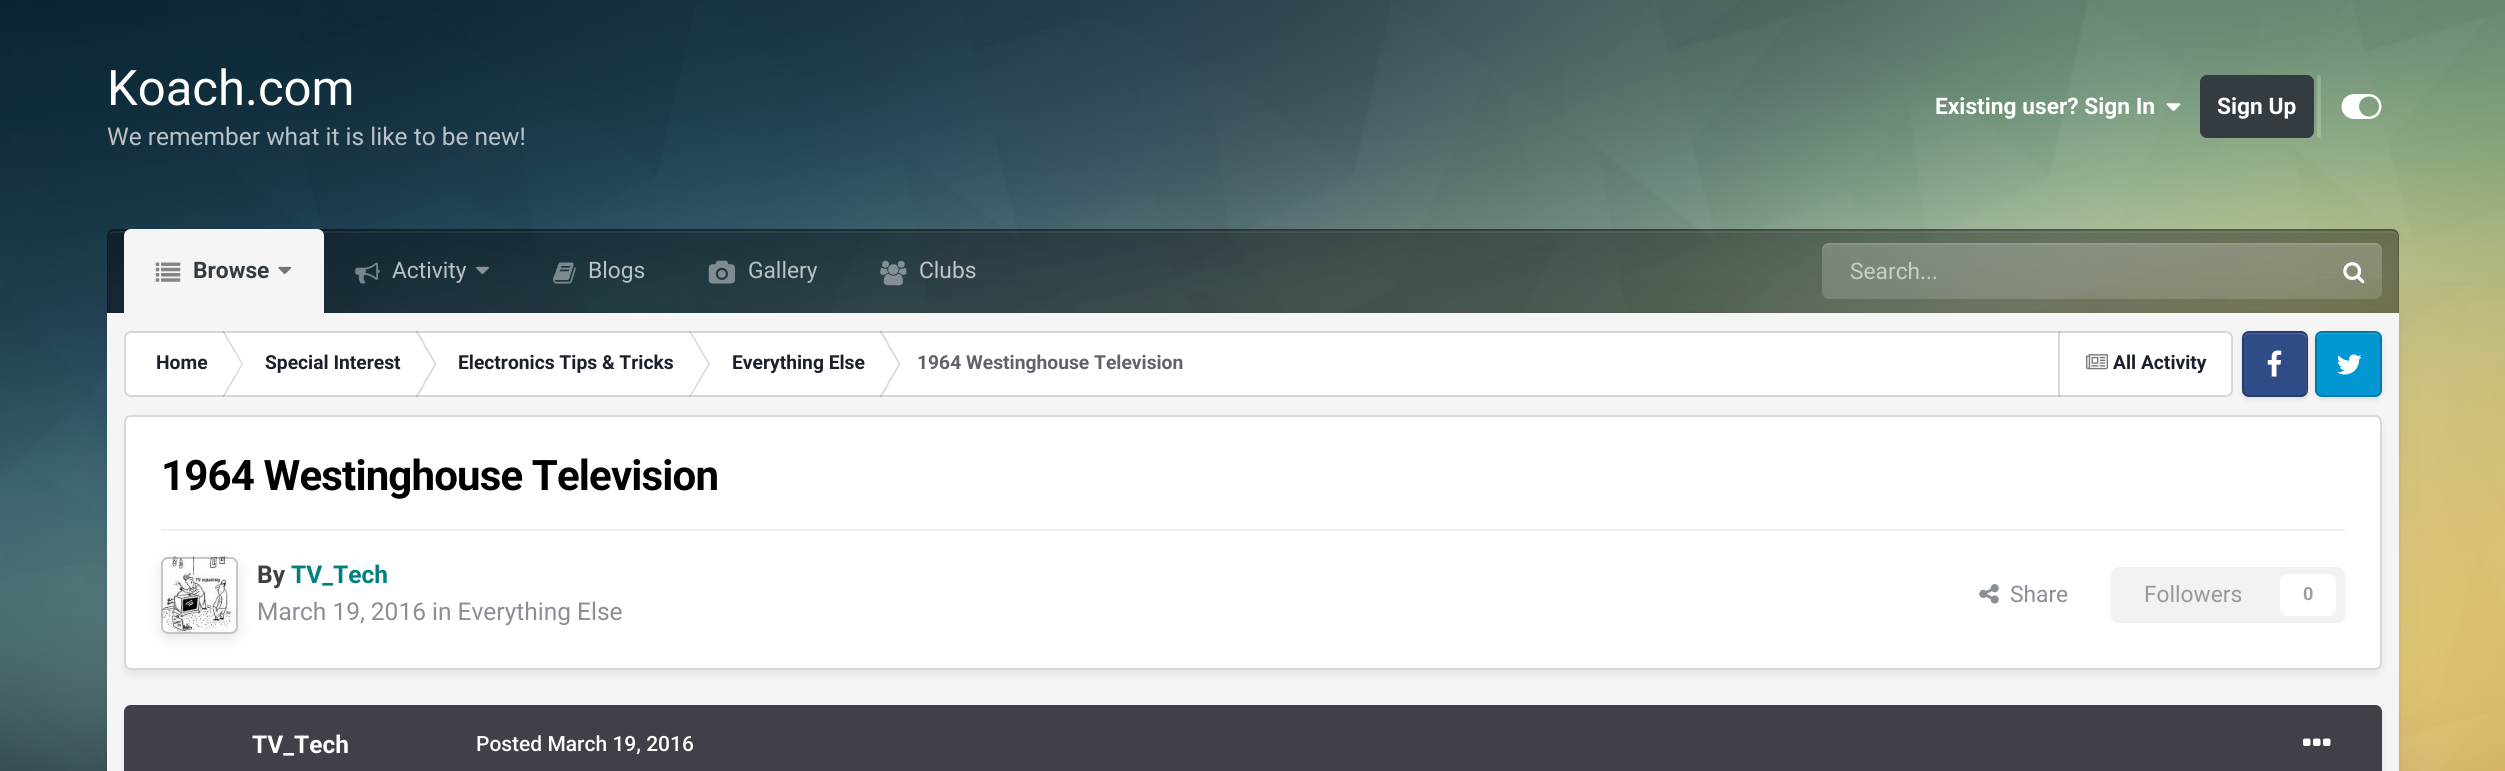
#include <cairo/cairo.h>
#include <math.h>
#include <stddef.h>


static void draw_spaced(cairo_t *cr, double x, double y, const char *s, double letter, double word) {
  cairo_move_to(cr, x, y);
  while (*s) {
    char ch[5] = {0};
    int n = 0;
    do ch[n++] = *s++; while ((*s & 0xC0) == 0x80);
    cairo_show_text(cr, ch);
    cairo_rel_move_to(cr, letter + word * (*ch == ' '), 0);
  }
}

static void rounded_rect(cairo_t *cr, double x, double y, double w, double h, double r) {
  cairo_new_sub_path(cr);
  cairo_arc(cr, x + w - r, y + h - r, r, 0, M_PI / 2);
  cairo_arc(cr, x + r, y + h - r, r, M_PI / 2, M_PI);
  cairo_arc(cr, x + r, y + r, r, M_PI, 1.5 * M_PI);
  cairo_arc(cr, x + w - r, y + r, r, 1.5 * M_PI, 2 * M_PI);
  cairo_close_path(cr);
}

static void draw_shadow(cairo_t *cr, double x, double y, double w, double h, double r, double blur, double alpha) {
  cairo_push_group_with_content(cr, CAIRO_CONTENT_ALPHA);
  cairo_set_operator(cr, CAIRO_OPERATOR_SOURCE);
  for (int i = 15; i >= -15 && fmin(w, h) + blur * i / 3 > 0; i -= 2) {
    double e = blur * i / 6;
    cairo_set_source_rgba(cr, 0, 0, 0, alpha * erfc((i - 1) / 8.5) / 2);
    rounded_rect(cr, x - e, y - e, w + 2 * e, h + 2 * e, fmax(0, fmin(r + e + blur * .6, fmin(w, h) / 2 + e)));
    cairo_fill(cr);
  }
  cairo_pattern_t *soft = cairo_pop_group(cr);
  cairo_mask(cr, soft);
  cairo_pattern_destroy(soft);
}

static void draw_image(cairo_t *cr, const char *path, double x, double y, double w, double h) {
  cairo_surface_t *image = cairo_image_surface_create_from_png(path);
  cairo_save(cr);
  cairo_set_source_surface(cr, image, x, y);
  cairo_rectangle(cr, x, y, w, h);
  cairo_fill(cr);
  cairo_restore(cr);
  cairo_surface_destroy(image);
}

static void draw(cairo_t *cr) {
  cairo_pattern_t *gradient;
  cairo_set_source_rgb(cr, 1, 1, 1);
  cairo_paint(cr);
  draw_image(cr, "images/1.png", 0, 0, 2505, 771);
  draw_image(cr, "images/2.png", 2166, 103, 15, 9);
  cairo_set_source_rgb(cr, 53 / 255.0, 60 / 255.0, 65 / 255.0);
  rounded_rect(cr, 2200, 75, 114, 63, 7);
  cairo_fill(cr);
  cairo_set_source_rgba(cr, 1, 1, 1, 0.2);
  rounded_rect(cr, 2317, 75, 4, 63, 2);
  cairo_fill(cr);
  draw_image(cr, "images/3.png", 2341, 94, 41, 25);
  cairo_set_source_rgb(cr, 0, 0, 0);
  draw_shadow(cr, 107, 315, 2292, 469, 5, 2.5, 0.08);
  draw_shadow(cr, 107, 313, 2292, 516, 5, 17.5, 0.06);
  cairo_set_source_rgba(cr, 0, 0, 0, 0.4);
  cairo_new_path(cr);
  cairo_move_to(cr, 114, 229);
  cairo_line_to(cr, 2392, 229);
  cairo_curve_to(cr, 2396, 229, 2399, 232, 2399, 236);
  cairo_line_to(cr, 2399, 313);
  cairo_line_to(cr, 107, 313);
  cairo_line_to(cr, 107, 236);
  cairo_curve_to(cr, 107, 232, 110, 229, 114, 229);
  cairo_close_path(cr);
  cairo_fill(cr);
  cairo_set_source_rgba(cr, 1, 1, 1, 0.07);
  cairo_new_path(cr);
  cairo_move_to(cr, 114, 233);
  cairo_line_to(cr, 2392, 233);
  cairo_curve_to(cr, 2395, 233, 2398, 235, 2398, 238);
  cairo_line_to(cr, 2398, 236);
  cairo_curve_to(cr, 2398, 233, 2396, 231, 2393, 231);
  cairo_line_to(cr, 114, 231);
  cairo_curve_to(cr, 112, 231, 109, 233, 109, 235);
  cairo_curve_to(cr, 110, 234, 112, 233, 114, 233);
  cairo_close_path(cr);
  cairo_fill(cr);
  cairo_set_source_rgba(cr, 0, 0, 0, 0.2);
  cairo_set_fill_rule(cr, CAIRO_FILL_RULE_EVEN_ODD);
  cairo_new_path(cr);
  cairo_move_to(cr, 114, 229);
  cairo_line_to(cr, 2392, 229);
  cairo_curve_to(cr, 2396, 229, 2399, 232, 2399, 236);
  cairo_line_to(cr, 2399, 313);
  cairo_line_to(cr, 107, 313);
  cairo_line_to(cr, 107, 236);
  cairo_curve_to(cr, 107, 232, 110, 229, 114, 229);
  cairo_close_path(cr);
  cairo_move_to(cr, 114, 231);
  cairo_line_to(cr, 2392, 231);
  cairo_curve_to(cr, 2395, 231, 2398, 233, 2398, 236);
  cairo_line_to(cr, 2398, 313);
  cairo_line_to(cr, 108, 313);
  cairo_line_to(cr, 108, 236);
  cairo_curve_to(cr, 108, 233, 111, 231, 114, 231);
  cairo_close_path(cr);
  cairo_fill(cr);
  cairo_set_source_rgb(cr, 245 / 255.0, 245 / 255.0, 245 / 255.0);
  cairo_new_path(cr);
  cairo_move_to(cr, 131, 229);
  cairo_line_to(cr, 317, 229);
  cairo_curve_to(cr, 321, 229, 324, 232, 324, 236);
  cairo_line_to(cr, 324, 313);
  cairo_line_to(cr, 124, 313);
  cairo_line_to(cr, 124, 236);
  cairo_curve_to(cr, 124, 232, 127, 229, 131, 229);
  cairo_close_path(cr);
  cairo_fill(cr);
  draw_image(cr, "images/4.png", 155, 262, 26, 20);
  draw_image(cr, "images/5.png", 278, 266, 14, 9);
  draw_image(cr, "images/6.png", 355, 262, 25, 22);
  draw_image(cr, "images/7.png", 476, 266, 13, 9);
  draw_image(cr, "images/8.png", 553, 262, 23, 22);
  draw_image(cr, "images/9.png", 708, 260, 27, 24);
  draw_image(cr, "images/10.png", 880, 260, 27, 26);
  cairo_set_source_rgba(cr, 1, 1, 1, 0.15);
  rounded_rect(cr, 1822, 243, 560, 56, 7);
  cairo_fill(cr);
  gradient = cairo_pattern_create_linear(2102, 243, 2102, 299);
  cairo_pattern_add_color_stop_rgba(gradient, 0, 1, 1, 1, 0.08);
  cairo_pattern_add_color_stop_rgba(gradient, 1, 1, 1, 1, 0);
  cairo_set_source(cr, gradient);
  cairo_pattern_destroy(gradient);
  rounded_rect(cr, 1822, 243, 560, 56, 7);
  cairo_fill(cr);
  cairo_set_source_rgba(cr, 1, 1, 1, 0.1);
  cairo_set_fill_rule(cr, CAIRO_FILL_RULE_WINDING);
  cairo_new_path(cr);
  cairo_move_to(cr, 1829, 245);
  cairo_line_to(cr, 2375, 245);
  cairo_curve_to(cr, 2379, 245, 2382, 248, 2382, 252);
  cairo_line_to(cr, 2382, 250);
  cairo_curve_to(cr, 2382, 246, 2379, 243, 2375, 243);
  cairo_line_to(cr, 1829, 243);
  cairo_curve_to(cr, 1825, 243, 1822, 246, 1822, 250);
  cairo_line_to(cr, 1822, 252);
  cairo_curve_to(cr, 1822, 248, 1825, 245, 1829, 245);
  cairo_close_path(cr);
  cairo_fill(cr);
  draw_image(cr, "images/11.png", 2343, 262, 22, 22);
  cairo_set_source_rgb(cr, 245 / 255.0, 245 / 255.0, 245 / 255.0);
  cairo_rectangle(cr, 107, 313, 2292, 458);
  cairo_fill(cr);
  cairo_set_source_rgb(cr, 1, 1, 1);
  rounded_rect(cr, 124, 331, 2109, 66, 7);
  cairo_fill(cr);
  cairo_set_source_rgb(cr, 216 / 255.0, 217 / 255.0, 217 / 255.0);
  cairo_new_path(cr);
  cairo_move_to(cr, 222, 331);
  cairo_line_to(cr, 224, 331);
  cairo_line_to(cr, 243, 364);
  cairo_line_to(cr, 241.5, 364);
  cairo_close_path(cr);
  cairo_fill(cr);
  cairo_new_path(cr);
  cairo_move_to(cr, 222, 397);
  cairo_line_to(cr, 224, 397);
  cairo_line_to(cr, 243, 364);
  cairo_line_to(cr, 241.5, 364);
  cairo_close_path(cr);
  cairo_fill(cr);
  cairo_new_path(cr);
  cairo_move_to(cr, 415.5, 331);
  cairo_line_to(cr, 417.5, 331);
  cairo_line_to(cr, 436.5, 364);
  cairo_line_to(cr, 434.5, 364);
  cairo_close_path(cr);
  cairo_fill(cr);
  cairo_new_path(cr);
  cairo_move_to(cr, 415.5, 397);
  cairo_line_to(cr, 417.5, 397);
  cairo_line_to(cr, 436.5, 364);
  cairo_line_to(cr, 434.5, 364);
  cairo_close_path(cr);
  cairo_fill(cr);
  cairo_new_path(cr);
  cairo_move_to(cr, 689, 331);
  cairo_line_to(cr, 690.5, 331);
  cairo_line_to(cr, 710, 364);
  cairo_line_to(cr, 708, 364);
  cairo_close_path(cr);
  cairo_fill(cr);
  cairo_new_path(cr);
  cairo_move_to(cr, 689, 397);
  cairo_line_to(cr, 690.5, 397);
  cairo_line_to(cr, 710, 364);
  cairo_line_to(cr, 708, 364);
  cairo_close_path(cr);
  cairo_fill(cr);
  cairo_new_path(cr);
  cairo_move_to(cr, 879.5, 331);
  cairo_line_to(cr, 881.5, 331);
  cairo_line_to(cr, 900.5, 364);
  cairo_line_to(cr, 898.5, 364);
  cairo_close_path(cr);
  cairo_fill(cr);
  cairo_new_path(cr);
  cairo_move_to(cr, 879.5, 397);
  cairo_line_to(cr, 881.5, 397);
  cairo_line_to(cr, 900.5, 364);
  cairo_line_to(cr, 898.5, 364);
  cairo_close_path(cr);
  cairo_fill(cr);
  cairo_rectangle(cr, 2058, 331, 2, 66);
  cairo_fill(cr);
  draw_image(cr, "images/12.png", 2086, 354, 22, 16);
  rounded_rect(cr, 125, 332, 2107, 64, 6);
  cairo_set_source_rgba(cr, 59 / 255.0, 64 / 255.0, 67 / 255.0, 0.2);
  cairo_stroke(cr);
  cairo_set_source_rgb(cr, 0, 0, 0);
  draw_shadow(cr, 2242, 333, 66, 66, 7, 2.5, 0.1);
  cairo_set_source_rgb(cr, 48 / 255.0, 76 / 255.0, 135 / 255.0);
  rounded_rect(cr, 2242, 331, 66, 66, 7);
  cairo_fill(cr);
  draw_image(cr, "images/13.png", 2267, 350, 15, 27);
  cairo_set_source_rgb(cr, 79 / 255.0, 103 / 255.0, 153 / 255.0);
  cairo_new_path(cr);
  cairo_move_to(cr, 2249, 334);
  cairo_curve_to(cr, 2246, 334, 2244, 337, 2244, 340);
  cairo_line_to(cr, 2244, 338);
  cairo_curve_to(cr, 2244, 335, 2246, 333, 2249, 333);
  cairo_line_to(cr, 2302, 333);
  cairo_curve_to(cr, 2305, 333, 2307, 335, 2307, 338);
  cairo_line_to(cr, 2307, 391);
  cairo_curve_to(cr, 2307, 392, 2306, 394, 2305, 395);
  cairo_line_to(cr, 2306, 392);
  cairo_line_to(cr, 2306, 340);
  cairo_curve_to(cr, 2306, 337, 2304, 334, 2301, 334);
  cairo_close_path(cr);
  cairo_fill(cr);
  rounded_rect(cr, 2243, 332, 64, 64, 6);
  cairo_set_source_rgba(cr, 0, 0, 0, 0.2);
  cairo_stroke(cr);
  cairo_set_source_rgb(cr, 0, 0, 0);
  draw_shadow(cr, 2315, 333, 67, 66, 7, 2.5, 0.1);
  cairo_set_source_rgb(cr, 0, 151 / 255.0, 211 / 255.0);
  rounded_rect(cr, 2315, 331, 67, 66, 7);
  cairo_fill(cr);
  cairo_set_source_rgb(cr, 38 / 255.0, 167 / 255.0, 218 / 255.0);
  cairo_new_path(cr);
  cairo_move_to(cr, 2322, 334);
  cairo_curve_to(cr, 2319, 334, 2317, 337, 2317, 340);
  cairo_curve_to(cr, 2317, 331, 2323, 333, 2331, 333);
  cairo_line_to(cr, 2366, 333);
  cairo_curve_to(cr, 2374, 333, 2380, 331, 2380, 340);
  cairo_curve_to(cr, 2380, 337, 2378, 334, 2375, 334);
  cairo_close_path(cr);
  cairo_fill(cr);
  draw_image(cr, "images/14.png", 2337, 354, 25, 21);
  rounded_rect(cr, 2316, 332, 65, 64, 6);
  cairo_set_source_rgba(cr, 0, 0, 0, 0.2);
  cairo_stroke(cr);
  cairo_set_source_rgb(cr, 0, 0, 0);
  draw_shadow(cr, 126, 422, 2254, 252, 5, 5, 0.08);
  cairo_set_source_rgb(cr, 1, 1, 1);
  rounded_rect(cr, 124, 415, 2258, 255, 7);
  cairo_fill(cr);
  rounded_rect(cr, 125, 416, 2256, 253, 6);
  cairo_set_source_rgba(cr, 59 / 255.0, 64 / 255.0, 67 / 255.0, 0.2);
  cairo_stroke(cr);
  cairo_set_source_rgb(cr, 239 / 255.0, 240 / 255.0, 240 / 255.0);
  cairo_rectangle(cr, 161, 529, 2184, 2);
  cairo_fill(cr);
  draw_image(cr, "images/15.png", 161, 556, 74, 77);
  cairo_save(cr);
  cairo_set_fill_rule(cr, CAIRO_FILL_RULE_EVEN_ODD);
  cairo_new_path(cr);
  cairo_move_to(cr, 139, 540);
  cairo_line_to(cr, 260, 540);
  cairo_line_to(cr, 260, 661);
  cairo_line_to(cr, 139, 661);
  cairo_close_path(cr);
  cairo_move_to(cr, 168, 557);
  cairo_line_to(cr, 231, 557);
  cairo_curve_to(cr, 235, 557, 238, 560, 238, 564);
  cairo_line_to(cr, 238, 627);
  cairo_curve_to(cr, 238, 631, 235, 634, 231, 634);
  cairo_line_to(cr, 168, 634);
  cairo_curve_to(cr, 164, 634, 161, 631, 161, 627);
  cairo_line_to(cr, 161, 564);
  cairo_curve_to(cr, 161, 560, 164, 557, 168, 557);
  cairo_close_path(cr);
  cairo_clip(cr);
  cairo_set_source_rgb(cr, 0, 0, 0);
  draw_shadow(cr, 161, 562, 77, 77, 7, 7, 0.1);
  cairo_restore(cr);
  rounded_rect(cr, 162, 558, 75, 75, 6);
  cairo_set_source_rgba(cr, 59 / 255.0, 64 / 255.0, 67 / 255.0, 0.3);
  cairo_stroke(cr);
  draw_image(cr, "images/16.png", 1979, 584, 20, 20);
  cairo_set_source_rgb(cr, 242 / 255.0, 242 / 255.0, 242 / 255.0);
  rounded_rect(cr, 2111, 567, 234, 56, 7);
  cairo_fill(cr);
  cairo_set_source_rgb(cr, 1, 1, 1);
  rounded_rect(cr, 2280, 574, 56, 42, 7);
  cairo_fill(cr);
  cairo_set_source_rgb(cr, 0, 0, 0);
  draw_shadow(cr, 126, 712, 2254, 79, 5, 5, 0.08);
  rounded_rect(cr, 125, 706, 2256, 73, 6);
  cairo_set_source_rgba(cr, 59 / 255.0, 64 / 255.0, 67 / 255.0, 0.2);
  cairo_stroke(cr);
  cairo_set_source_rgb(cr, 62 / 255.0, 65 / 255.0, 72 / 255.0);
  cairo_new_path(cr);
  cairo_move_to(cr, 131, 705);
  cairo_line_to(cr, 2375, 705);
  cairo_curve_to(cr, 2379, 705, 2382, 708, 2382, 712);
  cairo_line_to(cr, 2382, 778);
  cairo_line_to(cr, 124, 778);
  cairo_line_to(cr, 124, 712);
  cairo_curve_to(cr, 124, 708, 127, 705, 131, 705);
  cairo_close_path(cr);
  cairo_fill(cr);
  draw_image(cr, "images/17.png", 2303, 738, 28, 8);
  cairo_select_font_face(cr, "Roboto", CAIRO_FONT_SLANT_NORMAL, CAIRO_FONT_WEIGHT_NORMAL);
  cairo_set_font_size(cr, 49);
  cairo_set_source_rgb(cr, 1, 1, 1);
  cairo_move_to(cr, 107, 105);
  cairo_show_text(cr, "Koach.com");
  cairo_set_font_size(cr, 24.5);
  cairo_set_source_rgb(cr, 185 / 255.0, 194 / 255.0, 198 / 255.0);
  cairo_move_to(cr, 107, 145);
  cairo_show_text(cr, "We remember what it is like to be new!");
  cairo_select_font_face(cr, "Roboto", CAIRO_FONT_SLANT_NORMAL, CAIRO_FONT_WEIGHT_BOLD);
  cairo_set_font_size(cr, 22.75);
  cairo_set_source_rgb(cr, 1, 1, 1);
  cairo_move_to(cr, 1935, 114);
  cairo_show_text(cr, "Existing user? Sign In");
  cairo_move_to(cr, 2217, 114);
  cairo_show_text(cr, "Sign Up");
  cairo_set_source_rgb(cr, 53 / 255.0, 60 / 255.0, 65 / 255.0);
  cairo_move_to(cr, 193, 278);
  cairo_show_text(cr, "Browse");
  cairo_select_font_face(cr, "Roboto", CAIRO_FONT_SLANT_NORMAL, CAIRO_FONT_WEIGHT_NORMAL);
  cairo_set_source_rgb(cr, 185 / 255.0, 194 / 255.0, 198 / 255.0);
  cairo_move_to(cr, 392, 278);
  cairo_show_text(cr, "Activity");
  cairo_move_to(cr, 588, 278);
  cairo_show_text(cr, "Blogs");
  cairo_move_to(cr, 748, 278);
  cairo_show_text(cr, "Gallery");
  cairo_set_source_rgb(cr, 192 / 255.0, 198 / 255.0, 199 / 255.0);
  cairo_move_to(cr, 919, 278);
  cairo_show_text(cr, "Clubs");
  cairo_set_source_rgb(cr, 203 / 255.0, 207 / 255.0, 202 / 255.0);
  cairo_move_to(cr, 1850, 279);
  cairo_show_text(cr, "Search...");
  cairo_select_font_face(cr, "Roboto", CAIRO_FONT_SLANT_NORMAL, CAIRO_FONT_WEIGHT_BOLD);
  cairo_set_font_size(cr, 19.25);
  cairo_set_source_rgb(cr, 26 / 255.0, 32 / 255.0, 44 / 255.0);
  cairo_move_to(cr, 156, 369);
  cairo_show_text(cr, "Home");
  cairo_move_to(cr, 265, 369);
  cairo_show_text(cr, "Special Interest");
  cairo_move_to(cr, 458, 369);
  cairo_show_text(cr, "Electronics Tips & Tricks");
  cairo_move_to(cr, 732, 369);
  cairo_show_text(cr, "Everything Else");
  cairo_set_source_rgb(cr, 95 / 255.0, 99 / 255.0, 107 / 255.0);
  cairo_move_to(cr, 917, 369);
  cairo_show_text(cr, "1964 Westinghouse Television");
  cairo_set_source_rgb(cr, 26 / 255.0, 32 / 255.0, 44 / 255.0);
  cairo_move_to(cr, 2113, 369);
  cairo_show_text(cr, "All Activity");
  cairo_set_font_size(cr, 42);
  cairo_set_source_rgb(cr, 0, 0, 0);
  draw_spaced(cr, 161, 490, "1964 Westinghouse Television", -0.85, 0);
  cairo_set_font_size(cr, 24.5);
  cairo_set_source_rgb(cr, 59 / 255.0, 64 / 255.0, 67 / 255.0);
  cairo_move_to(cr, 257, 583);
  cairo_show_text(cr, "By");
  cairo_set_source_rgb(cr, 0, 128 / 255.0, 128 / 255.0);
  cairo_move_to(cr, 291, 583);
  cairo_show_text(cr, "TV_Tech");
  cairo_select_font_face(cr, "Roboto", CAIRO_FONT_SLANT_NORMAL, CAIRO_FONT_WEIGHT_NORMAL);
  cairo_set_source_rgb(cr, 137 / 255.0, 143 / 255.0, 151 / 255.0);
  cairo_move_to(cr, 257, 620);
  cairo_show_text(cr, "March 19, 2016 in Everything Else");
  cairo_set_font_size(cr, 22.75);
  cairo_move_to(cr, 2010, 602);
  cairo_show_text(cr, "Share");
  cairo_set_source_rgb(cr, 153 / 255.0, 153 / 255.0, 153 / 255.0);
  cairo_move_to(cr, 2144, 602);
  cairo_show_text(cr, "Followers");
  cairo_select_font_face(cr, "Roboto", CAIRO_FONT_SLANT_NORMAL, CAIRO_FONT_WEIGHT_BOLD);
  cairo_set_font_size(cr, 18);
  cairo_set_source_rgb(cr, 157 / 255.0, 160 / 255.0, 161 / 255.0);
  cairo_move_to(cr, 2303, 600);
  cairo_show_text(cr, "0");
  cairo_set_font_size(cr, 24.5);
  cairo_set_source_rgb(cr, 1, 1, 1);
  cairo_move_to(cr, 252, 753);
  cairo_show_text(cr, "TV_Tech");
  cairo_select_font_face(cr, "Roboto Medium", CAIRO_FONT_SLANT_NORMAL, CAIRO_FONT_WEIGHT_NORMAL);
  cairo_set_font_size(cr, 21);
  cairo_move_to(cr, 476, 751);
  cairo_show_text(cr, "Posted March 19, 2016");
}

int main(void) {
  cairo_surface_t *surface = cairo_image_surface_create(CAIRO_FORMAT_RGB24, 2505, 771);
  cairo_t *cr = cairo_create(surface);
  cairo_font_options_t *options = cairo_font_options_create();
  cairo_font_options_set_hint_metrics(options, CAIRO_HINT_METRICS_OFF);
  cairo_font_options_set_hint_style(options, CAIRO_HINT_STYLE_NONE);
  cairo_set_font_options(cr, options);
  cairo_set_miter_limit(cr, 4);
  draw(cr);
  cairo_surface_write_to_png(surface, "out.png");
  cairo_font_options_destroy(options);
  cairo_destroy(cr);
  cairo_surface_destroy(surface);
  return 0;
}
